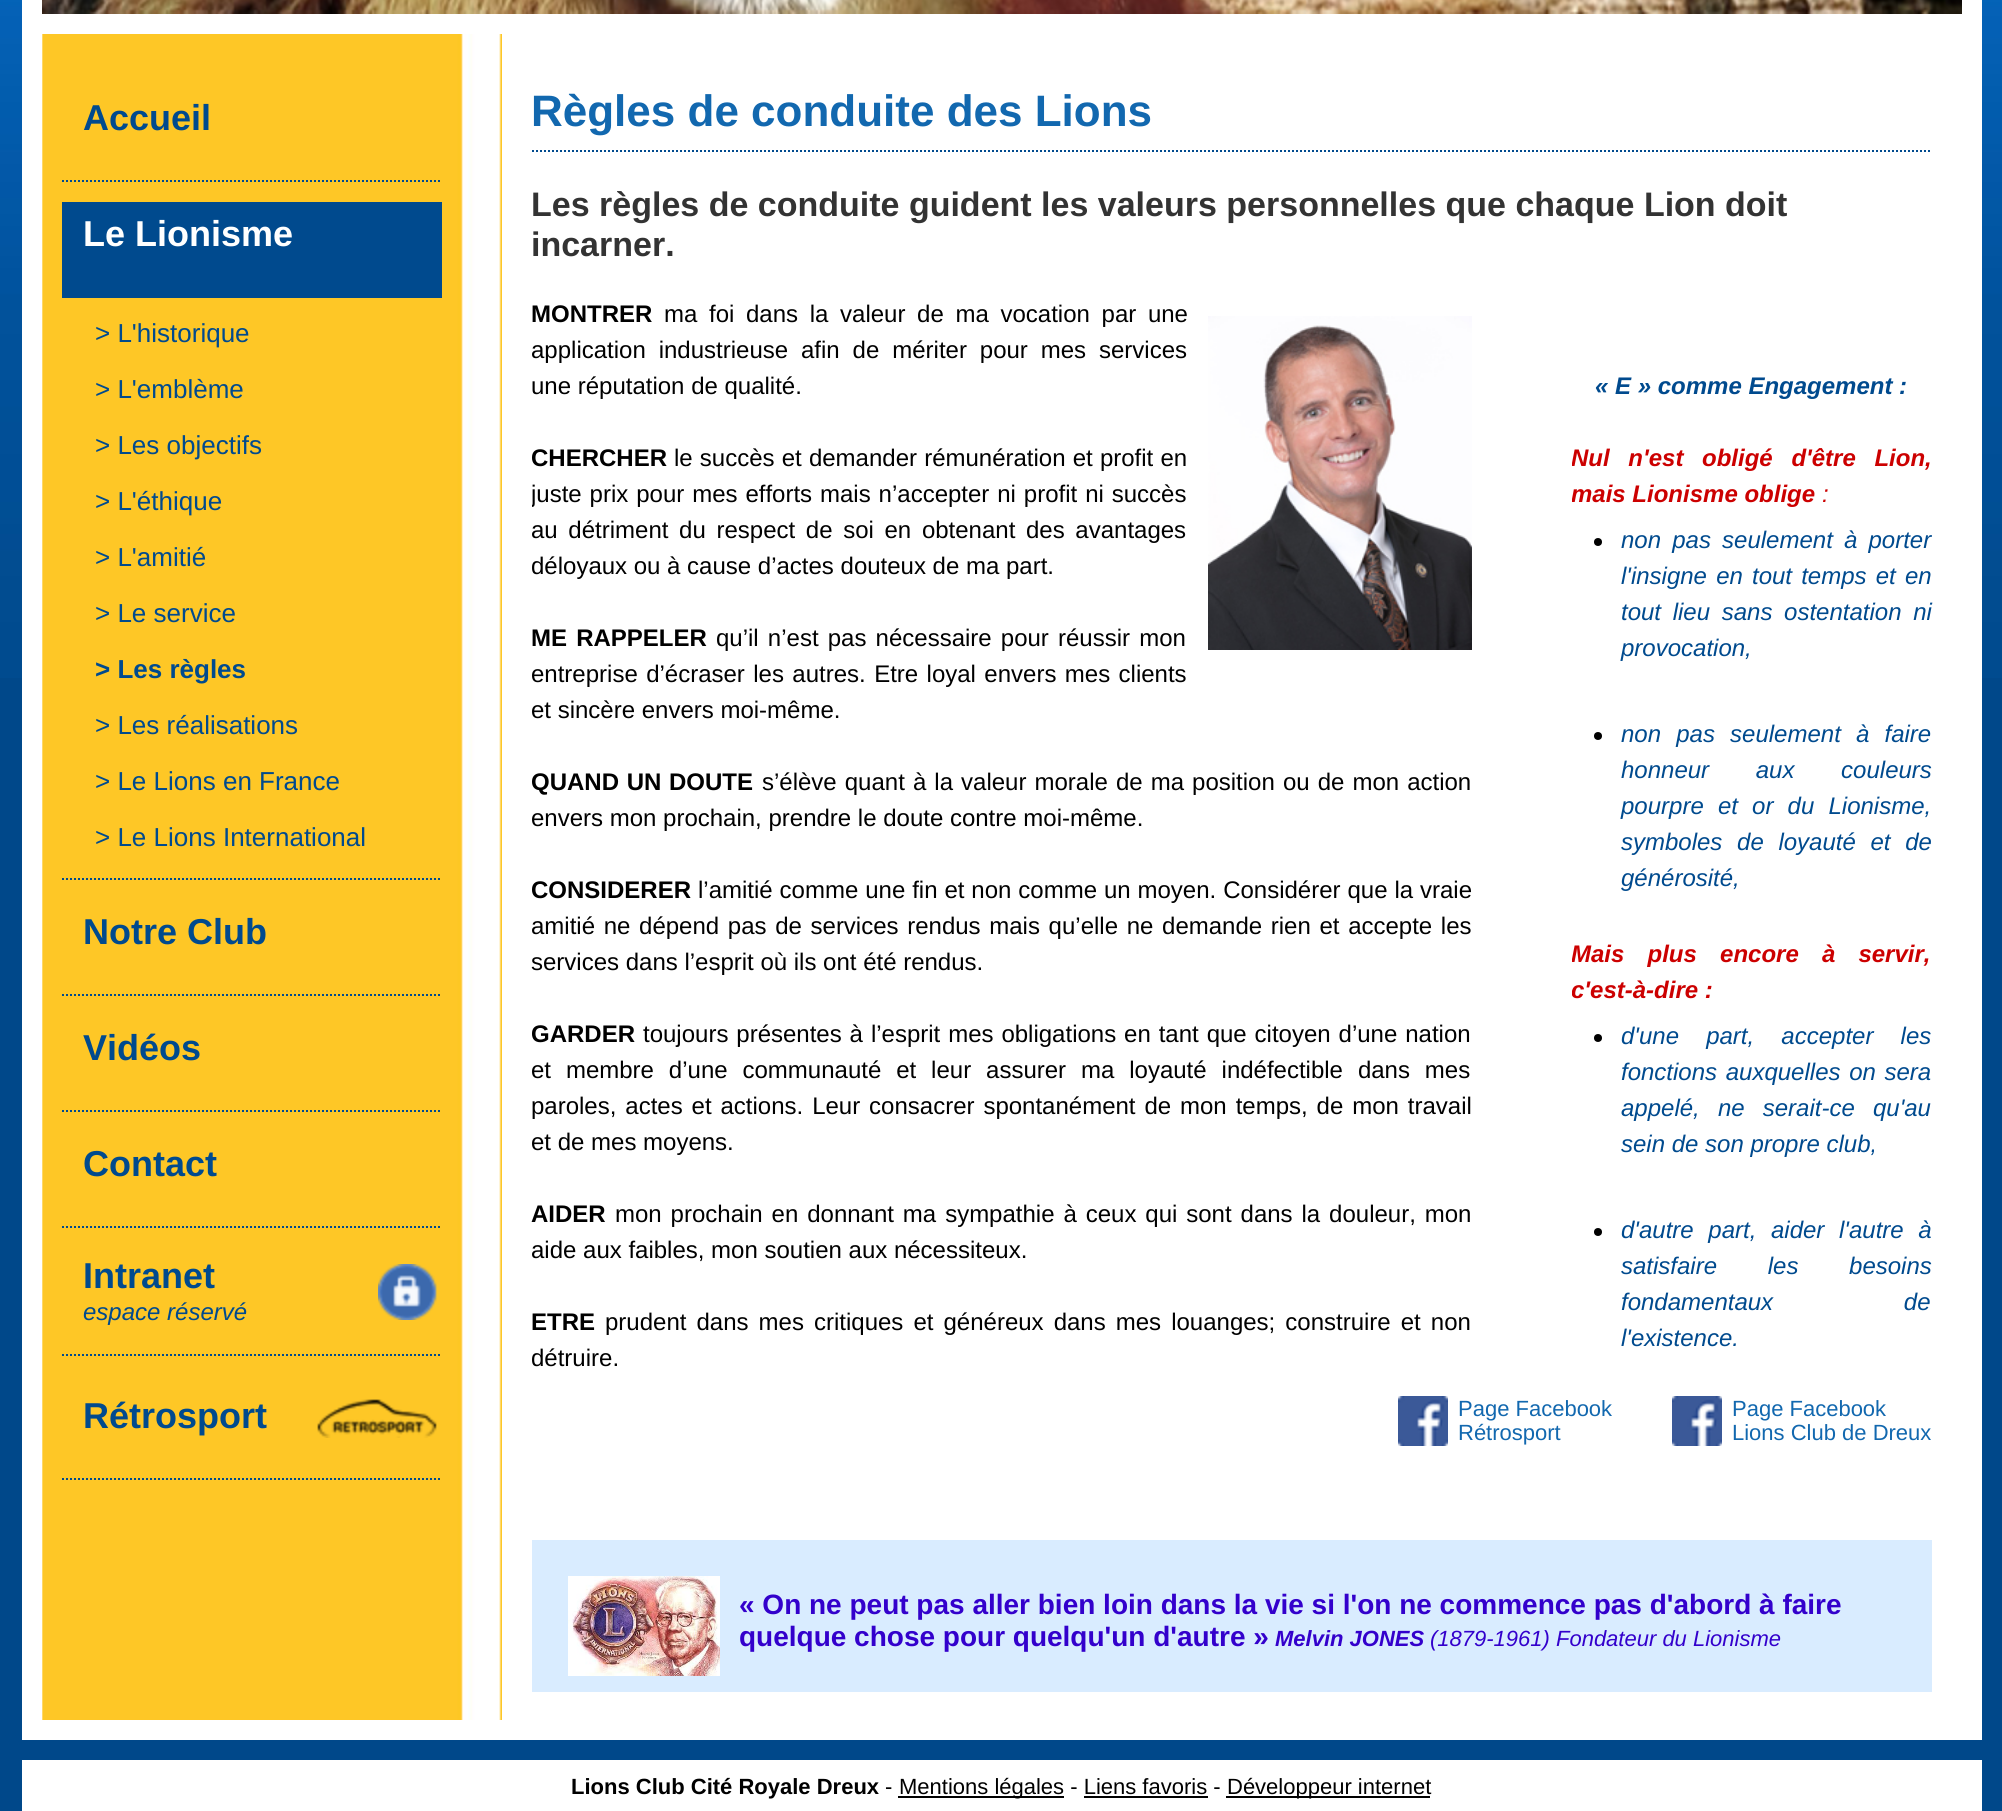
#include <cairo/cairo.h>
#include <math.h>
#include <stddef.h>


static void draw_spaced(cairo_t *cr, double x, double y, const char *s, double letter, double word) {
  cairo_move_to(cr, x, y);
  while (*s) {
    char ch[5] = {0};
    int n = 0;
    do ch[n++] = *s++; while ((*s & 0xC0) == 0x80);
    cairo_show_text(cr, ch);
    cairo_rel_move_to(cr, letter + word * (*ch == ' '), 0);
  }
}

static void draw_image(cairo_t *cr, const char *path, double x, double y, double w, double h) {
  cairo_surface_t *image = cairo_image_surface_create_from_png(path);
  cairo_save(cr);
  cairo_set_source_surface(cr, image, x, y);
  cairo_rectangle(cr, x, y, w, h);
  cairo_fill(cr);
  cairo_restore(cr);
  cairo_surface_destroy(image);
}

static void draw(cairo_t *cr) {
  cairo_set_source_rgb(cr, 0, 72 / 255.0, 138 / 255.0);
  cairo_paint(cr);
  draw_image(cr, "images/1.png", 0, 0, 2002, 678);
  cairo_set_source_rgb(cr, 1, 1, 1);
  cairo_rectangle(cr, 22, 0, 1960, 1740);
  cairo_fill(cr);
  draw_image(cr, "images/2.png", 42, 0, 1920, 14);
  draw_image(cr, "images/3.png", 42, 34, 460, 1686);
  cairo_new_path(cr);
  cairo_move_to(cr, 62, 181);
  cairo_line_to(cr, 442, 181);
  cairo_set_source_rgb(cr, 0, 74 / 255.0, 142 / 255.0);
  cairo_set_dash(cr, (double[]){2, 2}, 2, 0);
  cairo_stroke(cr);
  cairo_new_path(cr);
  cairo_move_to(cr, 62, 879);
  cairo_line_to(cr, 442, 879);
  cairo_stroke(cr);
  cairo_rectangle(cr, 62, 202, 380, 96);
  cairo_fill(cr);
  cairo_new_path(cr);
  cairo_move_to(cr, 62, 995);
  cairo_line_to(cr, 442, 995);
  cairo_stroke(cr);
  cairo_new_path(cr);
  cairo_move_to(cr, 62, 1111);
  cairo_line_to(cr, 442, 1111);
  cairo_stroke(cr);
  cairo_new_path(cr);
  cairo_move_to(cr, 62, 1227);
  cairo_line_to(cr, 442, 1227);
  cairo_stroke(cr);
  cairo_new_path(cr);
  cairo_move_to(cr, 62, 1355);
  cairo_line_to(cr, 442, 1355);
  cairo_stroke(cr);
  draw_image(cr, "images/4.png", 378, 1264, 59, 56);
  cairo_new_path(cr);
  cairo_move_to(cr, 62, 1479);
  cairo_line_to(cr, 442, 1479);
  cairo_stroke(cr);
  draw_image(cr, "images/5.png", 317, 1399, 120, 39);
  cairo_new_path(cr);
  cairo_move_to(cr, 532, 151);
  cairo_line_to(cr, 1932, 151);
  cairo_stroke(cr);
  draw_image(cr, "images/6.png", 1208, 316, 264, 334);
  cairo_set_source_rgb(cr, 0, 0, 0);
  cairo_arc(cr, 1598, 542, 4, 0, 2 * M_PI);
  cairo_fill(cr);
  cairo_arc(cr, 1598, 736, 4, 0, 2 * M_PI);
  cairo_fill(cr);
  cairo_arc(cr, 1598, 1038, 4, 0, 2 * M_PI);
  cairo_fill(cr);
  cairo_arc(cr, 1598, 1232, 4, 0, 2 * M_PI);
  cairo_fill(cr);
  draw_image(cr, "images/7.png", 1398, 1396, 50, 50);
  draw_image(cr, "images/7.png", 1672, 1396, 50, 50);
  cairo_set_source_rgb(cr, 217 / 255.0, 236 / 255.0, 1);
  cairo_rectangle(cr, 532, 1540, 1400, 152);
  cairo_fill(cr);
  draw_image(cr, "images/8.png", 568, 1576, 152, 100);
  cairo_set_source_rgb(cr, 1, 1, 1);
  cairo_rectangle(cr, 22, 1760, 1960, 51);
  cairo_fill(cr);
  cairo_set_source_rgb(cr, 0, 0, 0);
  cairo_rectangle(cr, 898, 1796, 166, 2);
  cairo_fill(cr);
  cairo_rectangle(cr, 1226, 1796, 204, 2);
  cairo_fill(cr);
  cairo_rectangle(cr, 1084, 1796, 124, 2);
  cairo_fill(cr);
  cairo_select_font_face(cr, "Liberation Sans", CAIRO_FONT_SLANT_NORMAL, CAIRO_FONT_WEIGHT_BOLD);
  cairo_set_font_size(cr, 36);
  cairo_set_source_rgb(cr, 0, 74 / 255.0, 142 / 255.0);
  cairo_move_to(cr, 83, 130);
  cairo_show_text(cr, "Accueil");
  cairo_set_source_rgb(cr, 1, 1, 1);
  cairo_move_to(cr, 83, 246);
  cairo_show_text(cr, "Le Lionisme");
  cairo_select_font_face(cr, "Liberation Sans", CAIRO_FONT_SLANT_NORMAL, CAIRO_FONT_WEIGHT_NORMAL);
  cairo_set_font_size(cr, 26);
  cairo_set_source_rgb(cr, 0, 74 / 255.0, 142 / 255.0);
  cairo_move_to(cr, 95, 342);
  cairo_show_text(cr, "> L'historique");
  cairo_move_to(cr, 95, 398);
  cairo_show_text(cr, "> L'emblème");
  cairo_move_to(cr, 95, 454);
  cairo_show_text(cr, "> Les objectifs");
  cairo_move_to(cr, 95, 510);
  cairo_show_text(cr, "> L'éthique");
  cairo_move_to(cr, 95, 566);
  cairo_show_text(cr, "> L'amitié");
  cairo_move_to(cr, 95, 622);
  cairo_show_text(cr, "> Le service");
  cairo_select_font_face(cr, "Liberation Sans", CAIRO_FONT_SLANT_NORMAL, CAIRO_FONT_WEIGHT_BOLD);
  cairo_move_to(cr, 95, 678);
  cairo_show_text(cr, "> Les règles");
  cairo_select_font_face(cr, "Liberation Sans", CAIRO_FONT_SLANT_NORMAL, CAIRO_FONT_WEIGHT_NORMAL);
  cairo_move_to(cr, 95, 734);
  cairo_show_text(cr, "> Les réalisations");
  cairo_move_to(cr, 95, 790);
  cairo_show_text(cr, "> Le Lions en France");
  cairo_move_to(cr, 95, 846);
  cairo_show_text(cr, "> Le Lions International");
  cairo_select_font_face(cr, "Liberation Sans", CAIRO_FONT_SLANT_NORMAL, CAIRO_FONT_WEIGHT_BOLD);
  cairo_set_font_size(cr, 36);
  cairo_move_to(cr, 83, 944);
  cairo_show_text(cr, "Notre Club");
  cairo_move_to(cr, 83, 1060);
  cairo_show_text(cr, "Vidéos");
  cairo_move_to(cr, 83, 1176);
  cairo_show_text(cr, "Contact");
  cairo_move_to(cr, 83, 1288);
  cairo_show_text(cr, "Intranet");
  cairo_select_font_face(cr, "Liberation Sans", CAIRO_FONT_SLANT_ITALIC, CAIRO_FONT_WEIGHT_NORMAL);
  cairo_set_font_size(cr, 24);
  cairo_move_to(cr, 83, 1320);
  cairo_show_text(cr, "espace réservé");
  cairo_select_font_face(cr, "Liberation Sans", CAIRO_FONT_SLANT_NORMAL, CAIRO_FONT_WEIGHT_BOLD);
  cairo_set_font_size(cr, 36);
  cairo_move_to(cr, 83, 1428);
  cairo_show_text(cr, "Rétrosport");
  cairo_set_font_size(cr, 44);
  cairo_set_source_rgb(cr, 18 / 255.0, 104 / 255.0, 175 / 255.0);
  cairo_move_to(cr, 531, 126);
  cairo_show_text(cr, "Règles de conduite des Lions");
  cairo_set_font_size(cr, 34);
  cairo_set_source_rgb(cr, 51 / 255.0, 51 / 255.0, 51 / 255.0);
  cairo_move_to(cr, 531, 216);
  cairo_show_text(cr, "Les règles de conduite guident les valeurs personnelles que chaque Lion doit");
  cairo_move_to(cr, 531, 256);
  cairo_show_text(cr, "incarner.");
  cairo_set_font_size(cr, 24);
  cairo_set_source_rgb(cr, 0, 0, 0);
  cairo_move_to(cr, 531, 322);
  cairo_show_text(cr, "MONTRER");
  cairo_select_font_face(cr, "Liberation Sans", CAIRO_FONT_SLANT_NORMAL, CAIRO_FONT_WEIGHT_NORMAL);
  draw_spaced(cr, 664, 322, "ma foi dans la valeur de ma vocation par une", 0, 5);
  draw_spaced(cr, 531, 358, "application industrieuse afin de mériter pour mes services", 0, 6.25);
  cairo_move_to(cr, 531, 394);
  cairo_show_text(cr, "une réputation de qualité.");
  cairo_select_font_face(cr, "Liberation Sans", CAIRO_FONT_SLANT_NORMAL, CAIRO_FONT_WEIGHT_BOLD);
  cairo_move_to(cr, 531, 466);
  cairo_show_text(cr, "CHERCHER");
  cairo_select_font_face(cr, "Liberation Sans", CAIRO_FONT_SLANT_NORMAL, CAIRO_FONT_WEIGHT_NORMAL);
  draw_spaced(cr, 674, 466, "le succès et demander rémunération et profit en", 0, 0.5);
  cairo_save(cr);
  cairo_rectangle(cr, 532, 296, 940, 1080);
  cairo_clip(cr);
  draw_spaced(cr, 531, 502, "juste prix pour mes efforts mais n’accepter ni profit ni succès", 0, 1.25);
  cairo_restore(cr);
  draw_spaced(cr, 531, 538, "au détriment du respect de soi en obtenant des avantages", 0, 4);
  cairo_move_to(cr, 531, 574);
  cairo_show_text(cr, "déloyaux ou à cause d’actes douteux de ma part.");
  cairo_select_font_face(cr, "Liberation Sans", CAIRO_FONT_SLANT_NORMAL, CAIRO_FONT_WEIGHT_BOLD);
  draw_spaced(cr, 531, 646, "ME RAPPELER", 0, 2.5);
  cairo_select_font_face(cr, "Liberation Sans", CAIRO_FONT_SLANT_NORMAL, CAIRO_FONT_WEIGHT_NORMAL);
  draw_spaced(cr, 716, 646, "qu’il n’est pas nécessaire pour réussir mon", 0, 2.5);
  draw_spaced(cr, 531, 682, "entreprise d’écraser les autres. Etre loyal envers mes clients", 0, 1.75);
  cairo_move_to(cr, 531, 718);
  cairo_show_text(cr, "et sincère envers moi-même.");
  cairo_select_font_face(cr, "Liberation Sans", CAIRO_FONT_SLANT_NORMAL, CAIRO_FONT_WEIGHT_BOLD);
  draw_spaced(cr, 531, 790, "QUAND UN DOUTE", 0, 1);
  cairo_select_font_face(cr, "Liberation Sans", CAIRO_FONT_SLANT_NORMAL, CAIRO_FONT_WEIGHT_NORMAL);
  draw_spaced(cr, 762, 790, "s’élève quant à la valeur morale de ma position ou de mon action", 0, 1.4);
  cairo_move_to(cr, 531, 826);
  cairo_show_text(cr, "envers mon prochain, prendre le doute contre moi-même.");
  cairo_select_font_face(cr, "Liberation Sans", CAIRO_FONT_SLANT_NORMAL, CAIRO_FONT_WEIGHT_BOLD);
  cairo_move_to(cr, 531, 898);
  cairo_show_text(cr, "CONSIDERER");
  cairo_select_font_face(cr, "Liberation Sans", CAIRO_FONT_SLANT_NORMAL, CAIRO_FONT_WEIGHT_NORMAL);
  draw_spaced(cr, 698, 898, "l’amitié comme une fin et non comme un moyen. Considérer que la vraie", 0, 0.25);
  draw_spaced(cr, 531, 934, "amitié ne dépend pas de services rendus mais qu’elle ne demande rien et accepte les", 0, 2);
  cairo_move_to(cr, 531, 970);
  cairo_show_text(cr, "services dans l’esprit où ils ont été rendus.");
  cairo_select_font_face(cr, "Liberation Sans", CAIRO_FONT_SLANT_NORMAL, CAIRO_FONT_WEIGHT_BOLD);
  cairo_move_to(cr, 531, 1042);
  cairo_show_text(cr, "GARDER");
  cairo_select_font_face(cr, "Liberation Sans", CAIRO_FONT_SLANT_NORMAL, CAIRO_FONT_WEIGHT_NORMAL);
  draw_spaced(cr, 643, 1042, "toujours présentes à l’esprit mes obligations en tant que citoyen d’une nation", 0, 1.25);
  draw_spaced(cr, 531, 1078, "et membre d’une communauté et leur assurer ma loyauté indéfectible dans mes", 0, 8.25);
  draw_spaced(cr, 531, 1114, "paroles, actes et actions. Leur consacrer spontanément de mon temps, de mon travail", 0, 2.25);
  cairo_move_to(cr, 531, 1150);
  cairo_show_text(cr, "et de mes moyens.");
  cairo_select_font_face(cr, "Liberation Sans", CAIRO_FONT_SLANT_NORMAL, CAIRO_FONT_WEIGHT_BOLD);
  cairo_move_to(cr, 531, 1222);
  cairo_show_text(cr, "AIDER");
  cairo_select_font_face(cr, "Liberation Sans", CAIRO_FONT_SLANT_NORMAL, CAIRO_FONT_WEIGHT_NORMAL);
  draw_spaced(cr, 615, 1222, "mon prochain en donnant ma sympathie à ceux qui sont dans la douleur, mon", 0, 2.25);
  cairo_move_to(cr, 531, 1258);
  cairo_show_text(cr, "aide aux faibles, mon soutien aux nécessiteux.");
  cairo_select_font_face(cr, "Liberation Sans", CAIRO_FONT_SLANT_NORMAL, CAIRO_FONT_WEIGHT_BOLD);
  cairo_move_to(cr, 531, 1330);
  cairo_show_text(cr, "ETRE");
  cairo_select_font_face(cr, "Liberation Sans", CAIRO_FONT_SLANT_NORMAL, CAIRO_FONT_WEIGHT_NORMAL);
  draw_spaced(cr, 605, 1330, "prudent dans mes critiques et généreux dans mes louanges; construire et non", 0, 3.4);
  cairo_move_to(cr, 531, 1366);
  cairo_show_text(cr, "détruire.");
  cairo_select_font_face(cr, "Liberation Sans", CAIRO_FONT_SLANT_ITALIC, CAIRO_FONT_WEIGHT_BOLD);
  cairo_set_source_rgb(cr, 0, 74 / 255.0, 142 / 255.0);
  cairo_move_to(cr, 1595, 394);
  cairo_show_text(cr, "« E » comme Engagement :");
  cairo_save(cr);
  cairo_rectangle(cr, 1572, 296, 360, 1100);
  cairo_clip(cr);
  cairo_set_source_rgb(cr, 204 / 255.0, 0, 0);
  draw_spaced(cr, 1571, 466, "Nul n'est obligé d'être Lion,", 0, 12);
  cairo_move_to(cr, 1571, 502);
  cairo_show_text(cr, "mais Lionisme oblige");
  cairo_restore(cr);
  cairo_select_font_face(cr, "Liberation Sans", CAIRO_FONT_SLANT_ITALIC, CAIRO_FONT_WEIGHT_NORMAL);
  cairo_set_source_rgb(cr, 204 / 255.0, 0, 0);
  cairo_move_to(cr, 1822, 502);
  cairo_show_text(cr, ":");
  cairo_set_source_rgb(cr, 0, 74 / 255.0, 142 / 255.0);
  draw_spaced(cr, 1621, 548, "non pas seulement à porter", 0, 4.5);
  draw_spaced(cr, 1621, 584, "l'insigne en tout temps et en", 0, 2.5);
  draw_spaced(cr, 1621, 620, "tout lieu sans ostentation ni", 0, 5);
  cairo_move_to(cr, 1621, 656);
  cairo_show_text(cr, "provocation,");
  draw_spaced(cr, 1621, 742, "non pas seulement à faire", 0, 8.5);
  draw_spaced(cr, 1621, 778, "honneur aux couleurs", 0, 40);
  draw_spaced(cr, 1621, 814, "pourpre et or du Lionisme,", 0, 7.5);
  draw_spaced(cr, 1621, 850, "symboles de loyauté et de", 0, 8);
  cairo_move_to(cr, 1621, 886);
  cairo_show_text(cr, "générosité,");
  cairo_save(cr);
  cairo_rectangle(cr, 1572, 296, 360, 1100);
  cairo_clip(cr);
  cairo_select_font_face(cr, "Liberation Sans", CAIRO_FONT_SLANT_ITALIC, CAIRO_FONT_WEIGHT_BOLD);
  cairo_set_source_rgb(cr, 204 / 255.0, 0, 0);
  draw_spaced(cr, 1571, 962, "Mais plus encore à servir,", 0, 16.5);
  cairo_move_to(cr, 1571, 998);
  cairo_show_text(cr, "c'est-à-dire :");
  cairo_restore(cr);
  draw_spaced(cr, 1621, 1044, "d'une part, accepter les", 0, 20.5);
  draw_spaced(cr, 1621, 1080, "fonctions auxquelles on sera", 0, 2);
  draw_spaced(cr, 1621, 1116, "appelé, ne serait-ce qu'au", 0, 11.5);
  cairo_move_to(cr, 1621, 1152);
  cairo_show_text(cr, "sein de son propre club,");
  draw_spaced(cr, 1621, 1238, "d'autre part, aider l'autre à", 0, 8);
  draw_spaced(cr, 1621, 1274, "satisfaire les besoins", 0, 44);
  draw_spaced(cr, 1621, 1310, "fondamentaux de", 0, 124);
  cairo_move_to(cr, 1621, 1346);
  cairo_show_text(cr, "l'existence.");
  cairo_select_font_face(cr, "Liberation Sans", CAIRO_FONT_SLANT_NORMAL, CAIRO_FONT_WEIGHT_NORMAL);
  cairo_set_font_size(cr, 22);
  cairo_set_source_rgb(cr, 18 / 255.0, 104 / 255.0, 175 / 255.0);
  cairo_move_to(cr, 1458, 1416);
  cairo_show_text(cr, "Page Facebook");
  cairo_move_to(cr, 1458, 1440);
  cairo_show_text(cr, "Rétrosport");
  cairo_move_to(cr, 1732, 1416);
  cairo_show_text(cr, "Page Facebook");
  cairo_move_to(cr, 1732, 1440);
  cairo_show_text(cr, "Lions Club de Dreux");
  cairo_select_font_face(cr, "Liberation Sans", CAIRO_FONT_SLANT_NORMAL, CAIRO_FONT_WEIGHT_BOLD);
  cairo_set_font_size(cr, 28);
  cairo_set_source_rgb(cr, 51 / 255.0, 0, 204 / 255.0);
  cairo_move_to(cr, 739, 1614);
  cairo_show_text(cr, "« On ne peut pas aller bien loin dans la vie si l'on ne commence pas d'abord à faire");
  cairo_move_to(cr, 739, 1646);
  cairo_show_text(cr, "quelque chose pour quelqu'un d'autre »");
  cairo_select_font_face(cr, "Liberation Sans", CAIRO_FONT_SLANT_ITALIC, CAIRO_FONT_WEIGHT_BOLD);
  cairo_set_font_size(cr, 22);
  cairo_move_to(cr, 1275, 1646);
  cairo_show_text(cr, "Melvin JONES");
  cairo_select_font_face(cr, "Liberation Sans", CAIRO_FONT_SLANT_ITALIC, CAIRO_FONT_WEIGHT_NORMAL);
  cairo_move_to(cr, 1430, 1646);
  cairo_show_text(cr, "(1879-1961) Fondateur du Lionisme");
  cairo_select_font_face(cr, "Liberation Sans", CAIRO_FONT_SLANT_NORMAL, CAIRO_FONT_WEIGHT_BOLD);
  cairo_set_source_rgb(cr, 0, 0, 0);
  cairo_move_to(cr, 571, 1794);
  cairo_show_text(cr, "Lions Club Cité Royale Dreux");
  cairo_select_font_face(cr, "Liberation Sans", CAIRO_FONT_SLANT_NORMAL, CAIRO_FONT_WEIGHT_NORMAL);
  cairo_move_to(cr, 885, 1794);
  cairo_show_text(cr, "-");
  cairo_move_to(cr, 899, 1794);
  cairo_show_text(cr, "Mentions légales - Liens favoris -");
  cairo_move_to(cr, 1227, 1794);
  cairo_show_text(cr, "Développeur internet");
}

int main(void) {
  cairo_surface_t *surface = cairo_image_surface_create(CAIRO_FORMAT_RGB24, 2002, 1811);
  cairo_t *cr = cairo_create(surface);
  cairo_font_options_t *options = cairo_font_options_create();
  cairo_font_options_set_hint_metrics(options, CAIRO_HINT_METRICS_OFF);
  cairo_font_options_set_hint_style(options, CAIRO_HINT_STYLE_NONE);
  cairo_set_font_options(cr, options);
  cairo_set_miter_limit(cr, 4);
  draw(cr);
  cairo_surface_write_to_png(surface, "out.png");
  cairo_font_options_destroy(options);
  cairo_destroy(cr);
  cairo_surface_destroy(surface);
  return 0;
}
